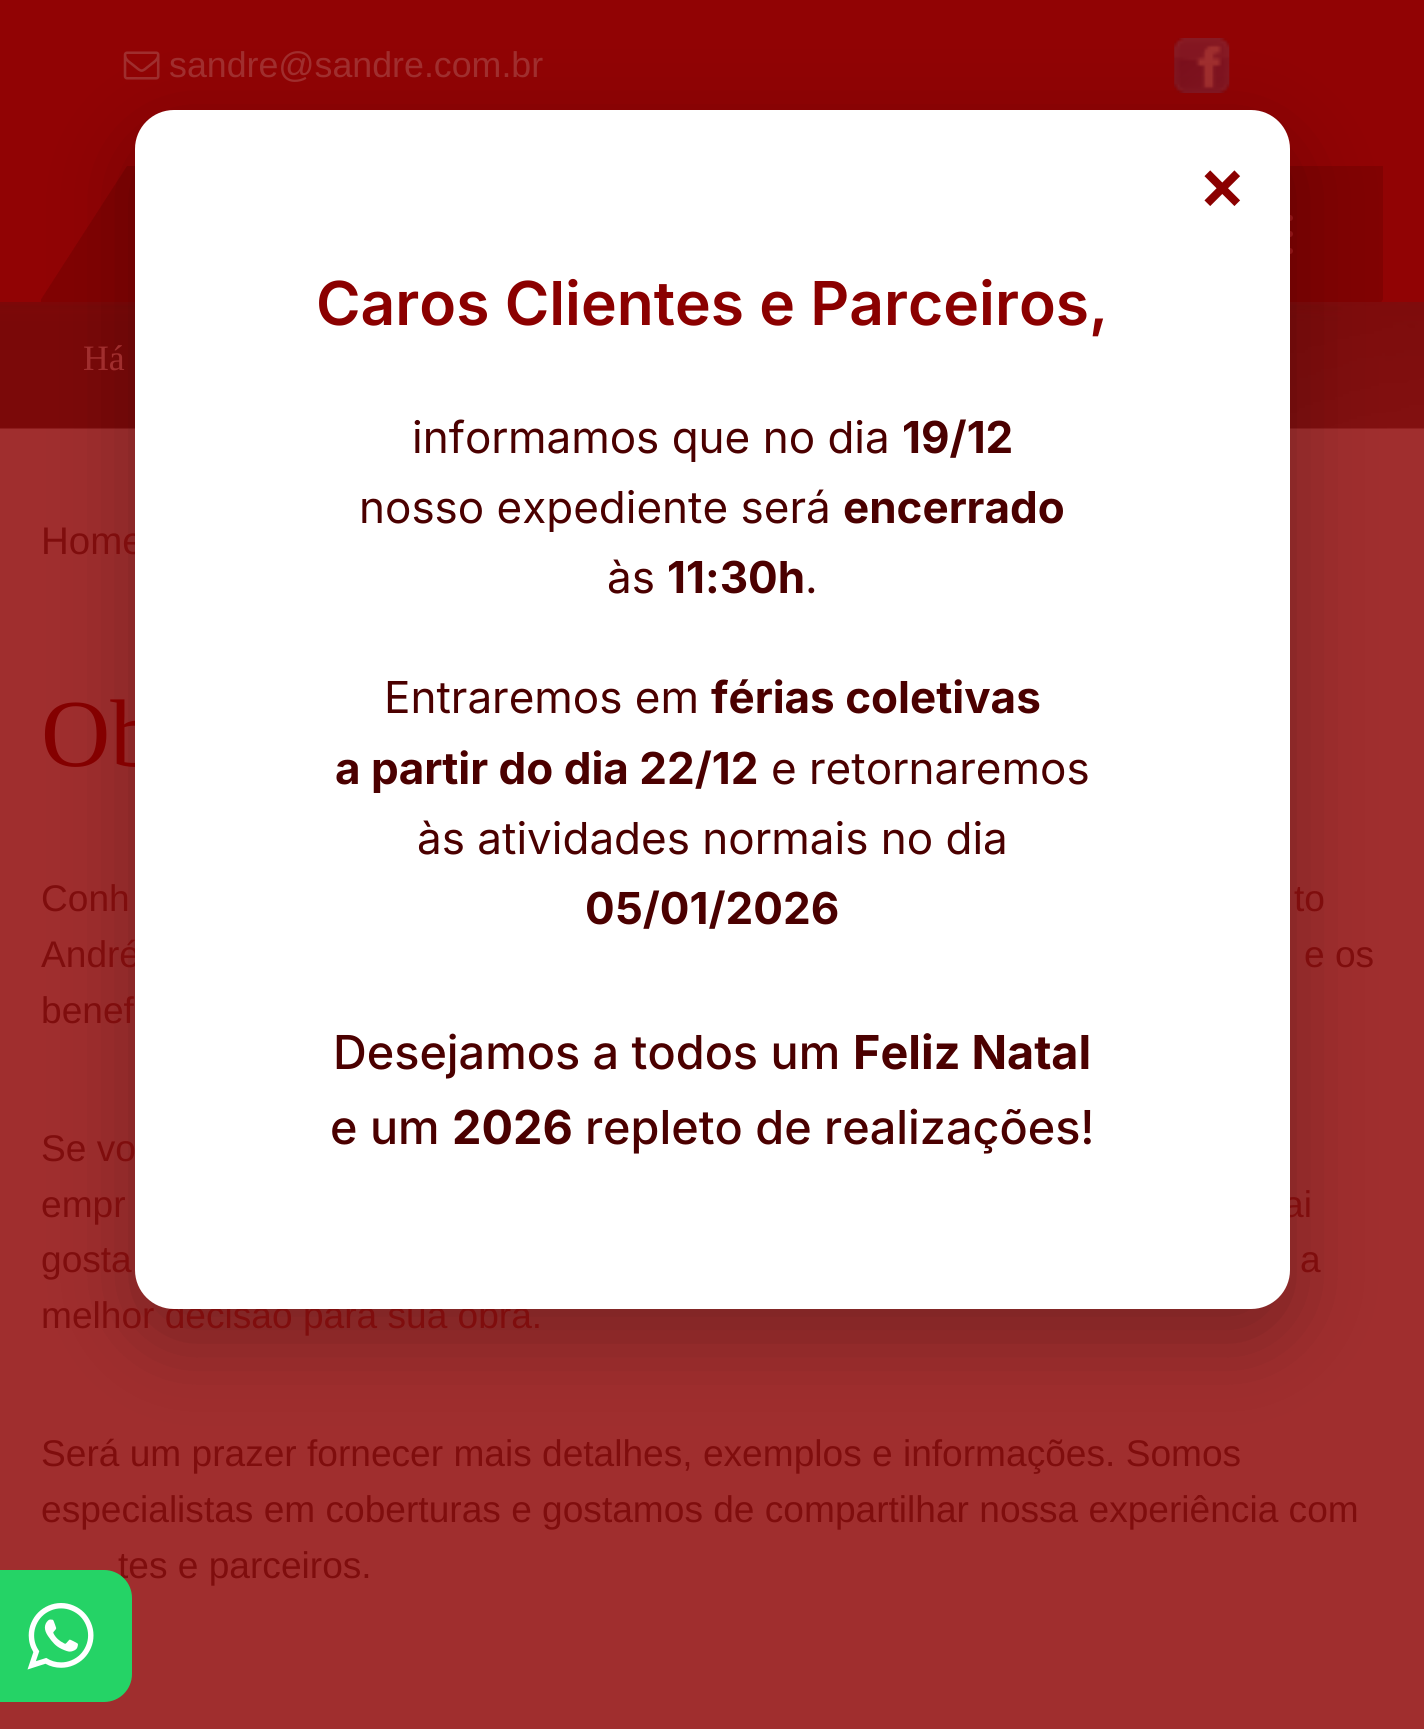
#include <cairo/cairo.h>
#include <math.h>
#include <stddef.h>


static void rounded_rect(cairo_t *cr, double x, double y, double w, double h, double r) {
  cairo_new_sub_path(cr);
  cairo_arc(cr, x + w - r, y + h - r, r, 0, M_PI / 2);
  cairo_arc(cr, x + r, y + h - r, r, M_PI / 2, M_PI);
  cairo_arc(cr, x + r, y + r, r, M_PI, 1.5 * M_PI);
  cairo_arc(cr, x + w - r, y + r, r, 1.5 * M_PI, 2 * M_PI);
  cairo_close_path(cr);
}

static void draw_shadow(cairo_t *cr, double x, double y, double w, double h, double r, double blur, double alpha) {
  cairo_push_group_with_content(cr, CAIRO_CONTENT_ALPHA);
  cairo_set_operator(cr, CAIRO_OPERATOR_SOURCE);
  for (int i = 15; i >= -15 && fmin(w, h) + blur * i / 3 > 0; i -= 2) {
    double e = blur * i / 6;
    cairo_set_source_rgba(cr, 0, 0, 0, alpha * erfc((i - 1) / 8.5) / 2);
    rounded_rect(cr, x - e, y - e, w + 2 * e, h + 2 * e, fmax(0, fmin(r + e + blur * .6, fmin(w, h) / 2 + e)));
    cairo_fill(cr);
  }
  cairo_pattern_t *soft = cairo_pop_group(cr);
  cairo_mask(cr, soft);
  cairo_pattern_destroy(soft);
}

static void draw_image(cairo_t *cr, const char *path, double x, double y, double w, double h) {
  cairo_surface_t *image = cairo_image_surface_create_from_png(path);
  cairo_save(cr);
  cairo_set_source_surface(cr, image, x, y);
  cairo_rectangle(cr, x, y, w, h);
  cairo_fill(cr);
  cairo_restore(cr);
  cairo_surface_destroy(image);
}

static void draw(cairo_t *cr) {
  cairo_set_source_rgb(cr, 160 / 255.0, 46 / 255.0, 46 / 255.0);
  cairo_paint(cr);
  cairo_set_source_rgb(cr, 145 / 255.0, 3 / 255.0, 4 / 255.0);
  cairo_rectangle(cr, 0, 0, 1424, 302);
  cairo_fill(cr);
  draw_image(cr, "images/1.png", 123, 51, 37, 29);
  draw_image(cr, "images/2.png", 1174, 38, 56, 55);
  cairo_save(cr);
  cairo_rectangle(cr, 41, 110, 1342, 193);
  cairo_clip(cr);
  cairo_set_source_rgb(cr, 129 / 255.0, 2 / 255.0, 2 / 255.0);
  cairo_new_path(cr);
  cairo_move_to(cr, 127, 166);
  cairo_line_to(cr, 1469, 166);
  cairo_line_to(cr, 1380, 304);
  cairo_line_to(cr, 38, 304);
  cairo_close_path(cr);
  cairo_fill(cr);
  cairo_restore(cr);
  cairo_set_source_rgb(cr, 158 / 255.0, 23 / 255.0, 25 / 255.0);
  rounded_rect(cr, 1232, 215, 61, 6, 3);
  cairo_fill(cr);
  rounded_rect(cr, 1232, 231, 61, 6, 3);
  cairo_fill(cr);
  rounded_rect(cr, 1232, 248, 61, 6, 3);
  cairo_fill(cr);
  draw_image(cr, "images/3.png", 0, 302, 1424, 127);
  cairo_set_source_rgb(cr, 0, 0, 0);
  draw_shadow(cr, 135, 138, 1155, 1199, 39, 41, 0.25);
  cairo_select_font_face(cr, "Liberation Sans", CAIRO_FONT_SLANT_NORMAL, CAIRO_FONT_WEIGHT_NORMAL);
  cairo_set_font_size(cr, 35.75);
  cairo_set_source_rgb(cr, 160 / 255.0, 46 / 255.0, 46 / 255.0);
  cairo_move_to(cr, 169, 77);
  cairo_show_text(cr, "sandre@sandre.com.br");
  cairo_select_font_face(cr, "Liberation Serif", CAIRO_FONT_SLANT_NORMAL, CAIRO_FONT_WEIGHT_NORMAL);
  cairo_move_to(cr, 83, 370);
  cairo_show_text(cr, "Há");
  cairo_select_font_face(cr, "Liberation Sans", CAIRO_FONT_SLANT_NORMAL, CAIRO_FONT_WEIGHT_NORMAL);
  cairo_set_font_size(cr, 38.5);
  cairo_set_source_rgb(cr, 127 / 255.0, 13 / 255.0, 13 / 255.0);
  cairo_move_to(cr, 41, 554);
  cairo_show_text(cr, "Home");
  cairo_select_font_face(cr, "Liberation Serif", CAIRO_FONT_SLANT_NORMAL, CAIRO_FONT_WEIGHT_NORMAL);
  cairo_set_font_size(cr, 96);
  cairo_set_source_rgb(cr, 132 / 255.0, 0, 0);
  cairo_move_to(cr, 41, 766);
  cairo_show_text(cr, "Ob");
  cairo_select_font_face(cr, "Liberation Sans", CAIRO_FONT_SLANT_NORMAL, CAIRO_FONT_WEIGHT_NORMAL);
  cairo_set_font_size(cr, 37.1);
  cairo_set_source_rgb(cr, 127 / 255.0, 13 / 255.0, 13 / 255.0);
  cairo_move_to(cr, 41, 911);
  cairo_show_text(cr, "Conh");
  cairo_move_to(cr, 1294, 911);
  cairo_show_text(cr, "to");
  cairo_move_to(cr, 41, 967);
  cairo_show_text(cr, "André");
  cairo_move_to(cr, 1304, 967);
  cairo_show_text(cr, "e os");
  cairo_move_to(cr, 41, 1023);
  cairo_show_text(cr, "benef");
  cairo_move_to(cr, 41, 1161);
  cairo_show_text(cr, "Se vo");
  cairo_move_to(cr, 41, 1217);
  cairo_show_text(cr, "empr");
  cairo_move_to(cr, 1283, 1217);
  cairo_show_text(cr, "ai");
  cairo_move_to(cr, 41, 1272);
  cairo_show_text(cr, "gosta");
  cairo_move_to(cr, 1300, 1272);
  cairo_show_text(cr, "a");
  cairo_move_to(cr, 41, 1328);
  cairo_show_text(cr, "melhor decisão para sua obra.");
  cairo_set_source_rgb(cr, 1, 1, 1);
  rounded_rect(cr, 135, 110, 1155, 1199, 39);
  cairo_fill(cr);
  cairo_select_font_face(cr, "Inter SemiBold", CAIRO_FONT_SLANT_NORMAL, CAIRO_FONT_WEIGHT_NORMAL);
  cairo_set_font_size(cr, 72);
  cairo_set_source_rgb(cr, 139 / 255.0, 0, 0);
  cairo_move_to(cr, 1198, 209);
  cairo_show_text(cr, "×");
  cairo_select_font_face(cr, "Inter Medium", CAIRO_FONT_SLANT_NORMAL, CAIRO_FONT_WEIGHT_NORMAL);
  cairo_set_font_size(cr, 46.75);
  cairo_set_source_rgb(cr, 75 / 255.0, 0, 0);
  cairo_move_to(cr, 585, 1144);
  cairo_show_text(cr, "repleto de realizações!");
  cairo_select_font_face(cr, "Inter", CAIRO_FONT_SLANT_NORMAL, CAIRO_FONT_WEIGHT_BOLD);
  cairo_move_to(cr, 452, 1144);
  cairo_show_text(cr, "2026");
  cairo_select_font_face(cr, "Inter Medium", CAIRO_FONT_SLANT_NORMAL, CAIRO_FONT_WEIGHT_NORMAL);
  cairo_move_to(cr, 330, 1144);
  cairo_show_text(cr, "e um");
  cairo_select_font_face(cr, "Inter", CAIRO_FONT_SLANT_NORMAL, CAIRO_FONT_WEIGHT_BOLD);
  cairo_move_to(cr, 853, 1069);
  cairo_show_text(cr, "Feliz Natal");
  cairo_select_font_face(cr, "Inter Medium", CAIRO_FONT_SLANT_NORMAL, CAIRO_FONT_WEIGHT_NORMAL);
  cairo_move_to(cr, 333, 1069);
  cairo_show_text(cr, "Desejamos a todos um");
  cairo_select_font_face(cr, "Inter", CAIRO_FONT_SLANT_NORMAL, CAIRO_FONT_WEIGHT_BOLD);
  cairo_set_font_size(cr, 44);
  cairo_move_to(cr, 585, 924);
  cairo_show_text(cr, "05/01/2026");
  cairo_select_font_face(cr, "Inter", CAIRO_FONT_SLANT_NORMAL, CAIRO_FONT_WEIGHT_NORMAL);
  cairo_move_to(cr, 417, 854);
  cairo_show_text(cr, "às atividades normais no dia");
  cairo_move_to(cr, 771, 784);
  cairo_show_text(cr, "e retornaremos");
  cairo_select_font_face(cr, "Inter", CAIRO_FONT_SLANT_NORMAL, CAIRO_FONT_WEIGHT_BOLD);
  cairo_move_to(cr, 335, 784);
  cairo_show_text(cr, "a partir do dia 22/12");
  cairo_move_to(cr, 711, 713);
  cairo_show_text(cr, "férias coletivas");
  cairo_select_font_face(cr, "Inter", CAIRO_FONT_SLANT_NORMAL, CAIRO_FONT_WEIGHT_NORMAL);
  cairo_move_to(cr, 384, 713);
  cairo_show_text(cr, "Entraremos em");
  cairo_move_to(cr, 805, 593);
  cairo_show_text(cr, ".");
  cairo_select_font_face(cr, "Inter", CAIRO_FONT_SLANT_NORMAL, CAIRO_FONT_WEIGHT_BOLD);
  cairo_move_to(cr, 667, 593);
  cairo_show_text(cr, "11:30h");
  cairo_select_font_face(cr, "Inter", CAIRO_FONT_SLANT_NORMAL, CAIRO_FONT_WEIGHT_NORMAL);
  cairo_move_to(cr, 607, 593);
  cairo_show_text(cr, "às");
  cairo_select_font_face(cr, "Inter", CAIRO_FONT_SLANT_NORMAL, CAIRO_FONT_WEIGHT_BOLD);
  cairo_move_to(cr, 843, 523);
  cairo_show_text(cr, "encerrado");
  cairo_select_font_face(cr, "Inter", CAIRO_FONT_SLANT_NORMAL, CAIRO_FONT_WEIGHT_NORMAL);
  cairo_move_to(cr, 359, 523);
  cairo_show_text(cr, "nosso expediente será");
  cairo_select_font_face(cr, "Inter", CAIRO_FONT_SLANT_NORMAL, CAIRO_FONT_WEIGHT_BOLD);
  cairo_move_to(cr, 902, 453);
  cairo_show_text(cr, "19/12");
  cairo_select_font_face(cr, "Inter", CAIRO_FONT_SLANT_NORMAL, CAIRO_FONT_WEIGHT_NORMAL);
  cairo_move_to(cr, 412, 453);
  cairo_show_text(cr, "informamos que no dia");
  cairo_select_font_face(cr, "Inter SemiBold", CAIRO_FONT_SLANT_NORMAL, CAIRO_FONT_WEIGHT_NORMAL);
  cairo_set_font_size(cr, 60.5);
  cairo_set_source_rgb(cr, 139 / 255.0, 0, 0);
  cairo_move_to(cr, 316, 325);
  cairo_show_text(cr, "Caros Clientes e Parceiros,");
  cairo_select_font_face(cr, "Liberation Sans", CAIRO_FONT_SLANT_NORMAL, CAIRO_FONT_WEIGHT_NORMAL);
  cairo_set_font_size(cr, 37.1);
  cairo_set_source_rgb(cr, 127 / 255.0, 13 / 255.0, 13 / 255.0);
  cairo_move_to(cr, 41, 1466);
  cairo_show_text(cr, "Será um prazer fornecer mais detalhes, exemplos e informações. Somos");
  cairo_move_to(cr, 41, 1522);
  cairo_show_text(cr, "especialistas em coberturas e gostamos de compartilhar nossa experiência com");
  cairo_move_to(cr, 118, 1578);
  cairo_show_text(cr, "tes e parceiros.");
  cairo_set_source_rgb(cr, 37 / 255.0, 211 / 255.0, 102 / 255.0);
  cairo_new_path(cr);
  cairo_move_to(cr, 0, 1570);
  cairo_line_to(cr, 104, 1570);
  cairo_curve_to(cr, 119.5, 1570, 132, 1582.5, 132, 1598);
  cairo_line_to(cr, 132, 1674);
  cairo_curve_to(cr, 132, 1689.5, 119.5, 1702, 104, 1702);
  cairo_line_to(cr, 0, 1702);
  cairo_close_path(cr);
  cairo_fill(cr);
  draw_image(cr, "images/4.png", 27, 1603, 67, 67);
}

int main(void) {
  cairo_surface_t *surface = cairo_image_surface_create(CAIRO_FORMAT_RGB24, 1424, 1729);
  cairo_t *cr = cairo_create(surface);
  cairo_font_options_t *options = cairo_font_options_create();
  cairo_font_options_set_hint_metrics(options, CAIRO_HINT_METRICS_OFF);
  cairo_font_options_set_hint_style(options, CAIRO_HINT_STYLE_NONE);
  cairo_set_font_options(cr, options);
  cairo_set_miter_limit(cr, 4);
  draw(cr);
  cairo_surface_write_to_png(surface, "out.png");
  cairo_font_options_destroy(options);
  cairo_destroy(cr);
  cairo_surface_destroy(surface);
  return 0;
}
